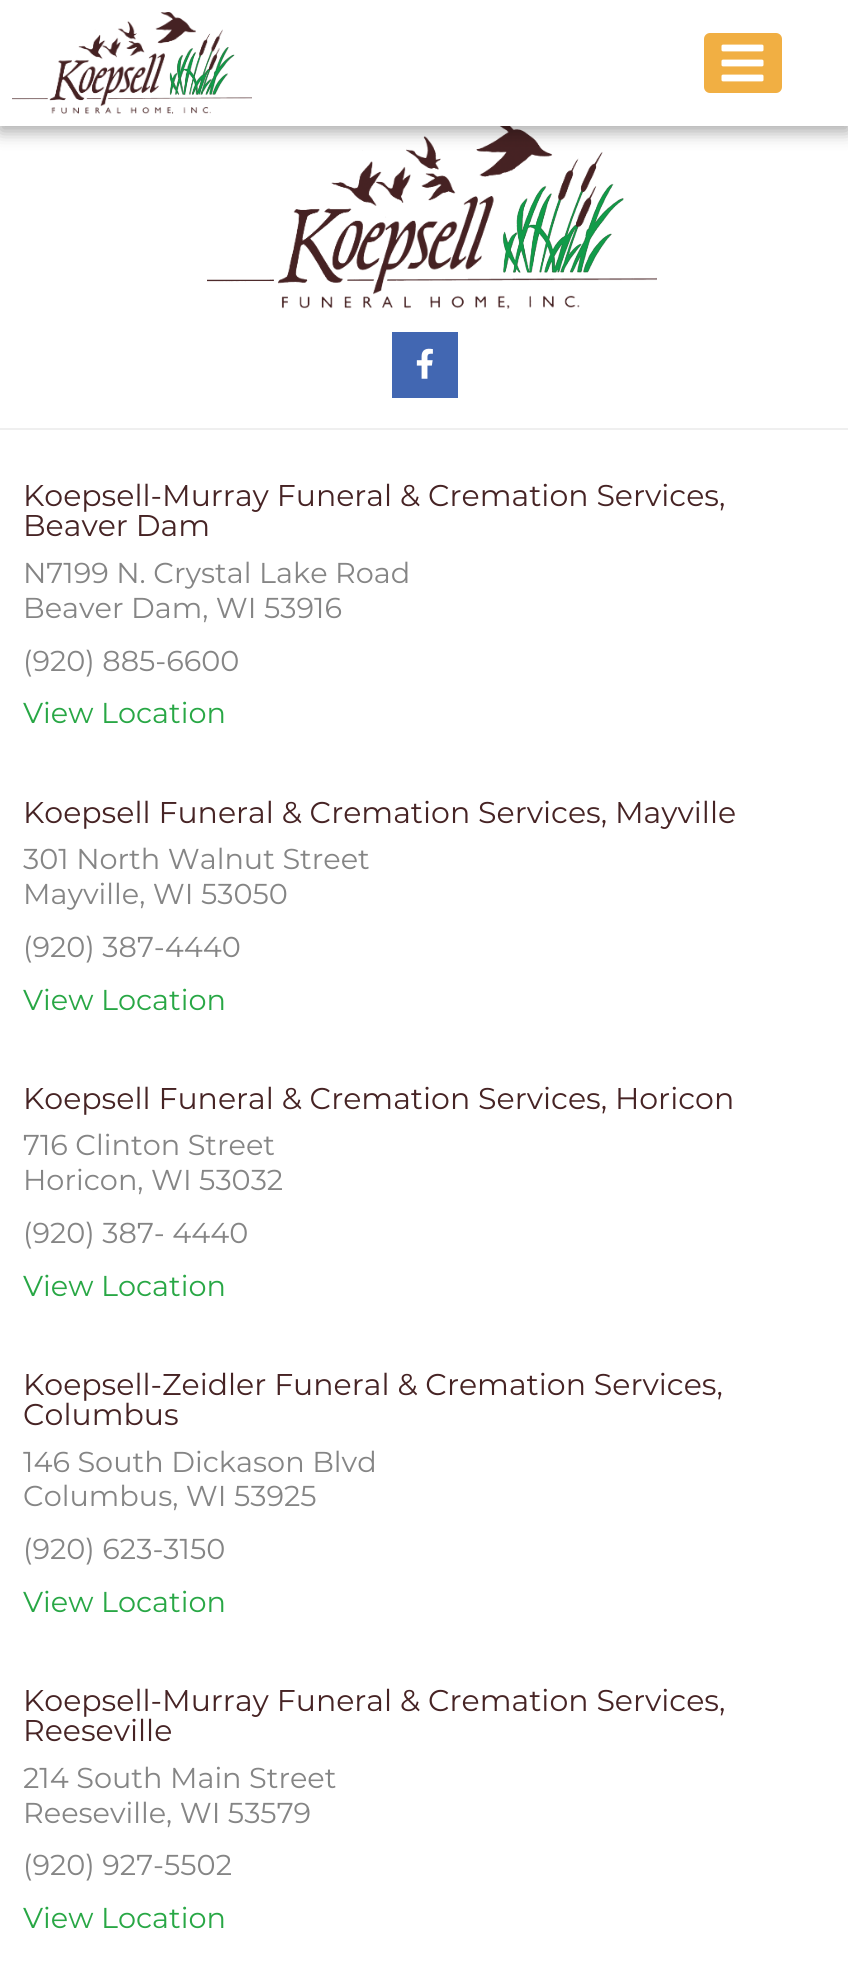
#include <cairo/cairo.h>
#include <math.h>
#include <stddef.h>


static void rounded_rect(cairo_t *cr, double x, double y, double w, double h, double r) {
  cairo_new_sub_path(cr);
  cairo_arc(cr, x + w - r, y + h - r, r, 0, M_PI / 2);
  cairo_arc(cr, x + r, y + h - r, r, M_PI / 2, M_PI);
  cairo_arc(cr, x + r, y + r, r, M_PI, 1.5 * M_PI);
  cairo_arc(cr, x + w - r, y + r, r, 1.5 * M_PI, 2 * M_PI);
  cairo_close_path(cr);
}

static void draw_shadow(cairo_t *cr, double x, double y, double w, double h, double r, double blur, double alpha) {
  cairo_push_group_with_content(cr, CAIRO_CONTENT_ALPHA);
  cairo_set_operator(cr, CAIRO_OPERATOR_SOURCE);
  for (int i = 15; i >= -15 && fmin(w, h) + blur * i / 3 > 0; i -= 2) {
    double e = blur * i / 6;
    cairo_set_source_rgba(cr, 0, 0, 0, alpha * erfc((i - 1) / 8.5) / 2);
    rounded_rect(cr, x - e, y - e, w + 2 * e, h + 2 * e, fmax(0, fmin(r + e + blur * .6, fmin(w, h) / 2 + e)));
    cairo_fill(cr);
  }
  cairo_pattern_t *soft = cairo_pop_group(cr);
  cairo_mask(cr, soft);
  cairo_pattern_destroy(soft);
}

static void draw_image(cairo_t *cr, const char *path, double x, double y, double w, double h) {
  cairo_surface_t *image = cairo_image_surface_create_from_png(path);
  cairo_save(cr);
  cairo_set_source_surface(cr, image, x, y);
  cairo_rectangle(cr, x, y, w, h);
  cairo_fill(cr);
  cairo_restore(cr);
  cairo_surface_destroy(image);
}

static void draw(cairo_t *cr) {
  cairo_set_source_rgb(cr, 1, 1, 1);
  cairo_paint(cr);
  draw_image(cr, "images/3.png", 207, 126, 450, 183);
  cairo_set_source_rgb(cr, 0, 0, 0);
  draw_shadow(cr, 0, 5, 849, 126, 0, 9, 0.36);
  cairo_set_source_rgb(cr, 1, 1, 1);
  cairo_rectangle(cr, 0, 0, 848, 126);
  cairo_fill(cr);
  draw_image(cr, "images/1.png", 12, 12, 240, 102);
  cairo_set_source_rgb(cr, 241 / 255.0, 175 / 255.0, 67 / 255.0);
  rounded_rect(cr, 704, 33, 78, 60, 6);
  cairo_fill(cr);
  draw_image(cr, "images/2.png", 721, 44, 43, 38);
  cairo_set_source_rgb(cr, 239 / 255.0, 239 / 255.0, 239 / 255.0);
  cairo_rectangle(cr, 0, 428, 848, 2);
  cairo_fill(cr);
  cairo_set_source_rgb(cr, 66 / 255.0, 103 / 255.0, 178 / 255.0);
  cairo_rectangle(cr, 392, 332, 66, 66);
  cairo_fill(cr);
  draw_image(cr, "images/4.png", 416, 348, 17, 31);
  cairo_select_font_face(cr, "Montserrat", CAIRO_FONT_SLANT_NORMAL, CAIRO_FONT_WEIGHT_NORMAL);
  cairo_set_font_size(cr, 30);
  cairo_set_source_rgb(cr, 70 / 255.0, 35 / 255.0, 36 / 255.0);
  cairo_move_to(cr, 23, 506);
  cairo_show_text(cr, "Koepsell-Murray Funeral & Cremation Services,");
  cairo_move_to(cr, 23, 536);
  cairo_show_text(cr, "Beaver Dam");
  cairo_set_font_size(cr, 28.75);
  cairo_set_source_rgb(cr, 133 / 255.0, 133 / 255.0, 133 / 255.0);
  cairo_move_to(cr, 23, 583);
  cairo_show_text(cr, "N7199 N. Crystal Lake Road");
  cairo_move_to(cr, 23, 618);
  cairo_show_text(cr, "Beaver Dam, WI 53916");
  cairo_move_to(cr, 23, 671);
  cairo_show_text(cr, "(920) 885-6600");
  cairo_set_source_rgb(cr, 40 / 255.0, 167 / 255.0, 69 / 255.0);
  cairo_move_to(cr, 23, 723);
  cairo_show_text(cr, "View Location");
  cairo_set_font_size(cr, 30);
  cairo_set_source_rgb(cr, 70 / 255.0, 35 / 255.0, 36 / 255.0);
  cairo_move_to(cr, 23, 823);
  cairo_show_text(cr, "Koepsell Funeral & Cremation Services, Mayville");
  cairo_set_font_size(cr, 28.75);
  cairo_set_source_rgb(cr, 133 / 255.0, 133 / 255.0, 133 / 255.0);
  cairo_move_to(cr, 23, 869);
  cairo_show_text(cr, "301 North Walnut Street");
  cairo_move_to(cr, 23, 904);
  cairo_show_text(cr, "Mayville, WI 53050");
  cairo_move_to(cr, 23, 957);
  cairo_show_text(cr, "(920) 387-4440");
  cairo_set_source_rgb(cr, 40 / 255.0, 167 / 255.0, 69 / 255.0);
  cairo_move_to(cr, 23, 1010);
  cairo_show_text(cr, "View Location");
  cairo_set_font_size(cr, 30);
  cairo_set_source_rgb(cr, 70 / 255.0, 35 / 255.0, 36 / 255.0);
  cairo_move_to(cr, 23, 1109);
  cairo_show_text(cr, "Koepsell Funeral & Cremation Services, Horicon");
  cairo_set_font_size(cr, 28.75);
  cairo_set_source_rgb(cr, 133 / 255.0, 133 / 255.0, 133 / 255.0);
  cairo_move_to(cr, 23, 1155);
  cairo_show_text(cr, "716 Clinton Street");
  cairo_move_to(cr, 23, 1190);
  cairo_show_text(cr, "Horicon, WI 53032");
  cairo_move_to(cr, 23, 1243);
  cairo_show_text(cr, "(920) 387- 4440");
  cairo_set_source_rgb(cr, 40 / 255.0, 167 / 255.0, 69 / 255.0);
  cairo_move_to(cr, 23, 1296);
  cairo_show_text(cr, "View Location");
  cairo_set_font_size(cr, 30);
  cairo_set_source_rgb(cr, 70 / 255.0, 35 / 255.0, 36 / 255.0);
  cairo_move_to(cr, 23, 1395);
  cairo_show_text(cr, "Koepsell-Zeidler Funeral & Cremation Services,");
  cairo_move_to(cr, 23, 1425);
  cairo_show_text(cr, "Columbus");
  cairo_set_font_size(cr, 28.75);
  cairo_set_source_rgb(cr, 133 / 255.0, 133 / 255.0, 133 / 255.0);
  cairo_move_to(cr, 23, 1472);
  cairo_show_text(cr, "146 South Dickason Blvd");
  cairo_move_to(cr, 23, 1506);
  cairo_show_text(cr, "Columbus, WI 53925");
  cairo_move_to(cr, 23, 1559);
  cairo_show_text(cr, "(920) 623-3150");
  cairo_set_source_rgb(cr, 40 / 255.0, 167 / 255.0, 69 / 255.0);
  cairo_move_to(cr, 23, 1612);
  cairo_show_text(cr, "View Location");
  cairo_set_font_size(cr, 30);
  cairo_set_source_rgb(cr, 70 / 255.0, 35 / 255.0, 36 / 255.0);
  cairo_move_to(cr, 23, 1711);
  cairo_show_text(cr, "Koepsell-Murray Funeral & Cremation Services,");
  cairo_move_to(cr, 23, 1741);
  cairo_show_text(cr, "Reeseville");
  cairo_set_font_size(cr, 28.75);
  cairo_set_source_rgb(cr, 133 / 255.0, 133 / 255.0, 133 / 255.0);
  cairo_move_to(cr, 23, 1788);
  cairo_show_text(cr, "214 South Main Street");
  cairo_move_to(cr, 23, 1823);
  cairo_show_text(cr, "Reeseville, WI 53579");
  cairo_move_to(cr, 23, 1875);
  cairo_show_text(cr, "(920) 927-5502");
  cairo_set_source_rgb(cr, 40 / 255.0, 167 / 255.0, 69 / 255.0);
  cairo_move_to(cr, 23, 1928);
  cairo_show_text(cr, "View Location");
}

int main(void) {
  cairo_surface_t *surface = cairo_image_surface_create(CAIRO_FORMAT_RGB24, 848, 1977);
  cairo_t *cr = cairo_create(surface);
  cairo_font_options_t *options = cairo_font_options_create();
  cairo_font_options_set_hint_metrics(options, CAIRO_HINT_METRICS_OFF);
  cairo_font_options_set_hint_style(options, CAIRO_HINT_STYLE_NONE);
  cairo_set_font_options(cr, options);
  cairo_set_miter_limit(cr, 4);
  draw(cr);
  cairo_surface_write_to_png(surface, "out.png");
  cairo_font_options_destroy(options);
  cairo_destroy(cr);
  cairo_surface_destroy(surface);
  return 0;
}
